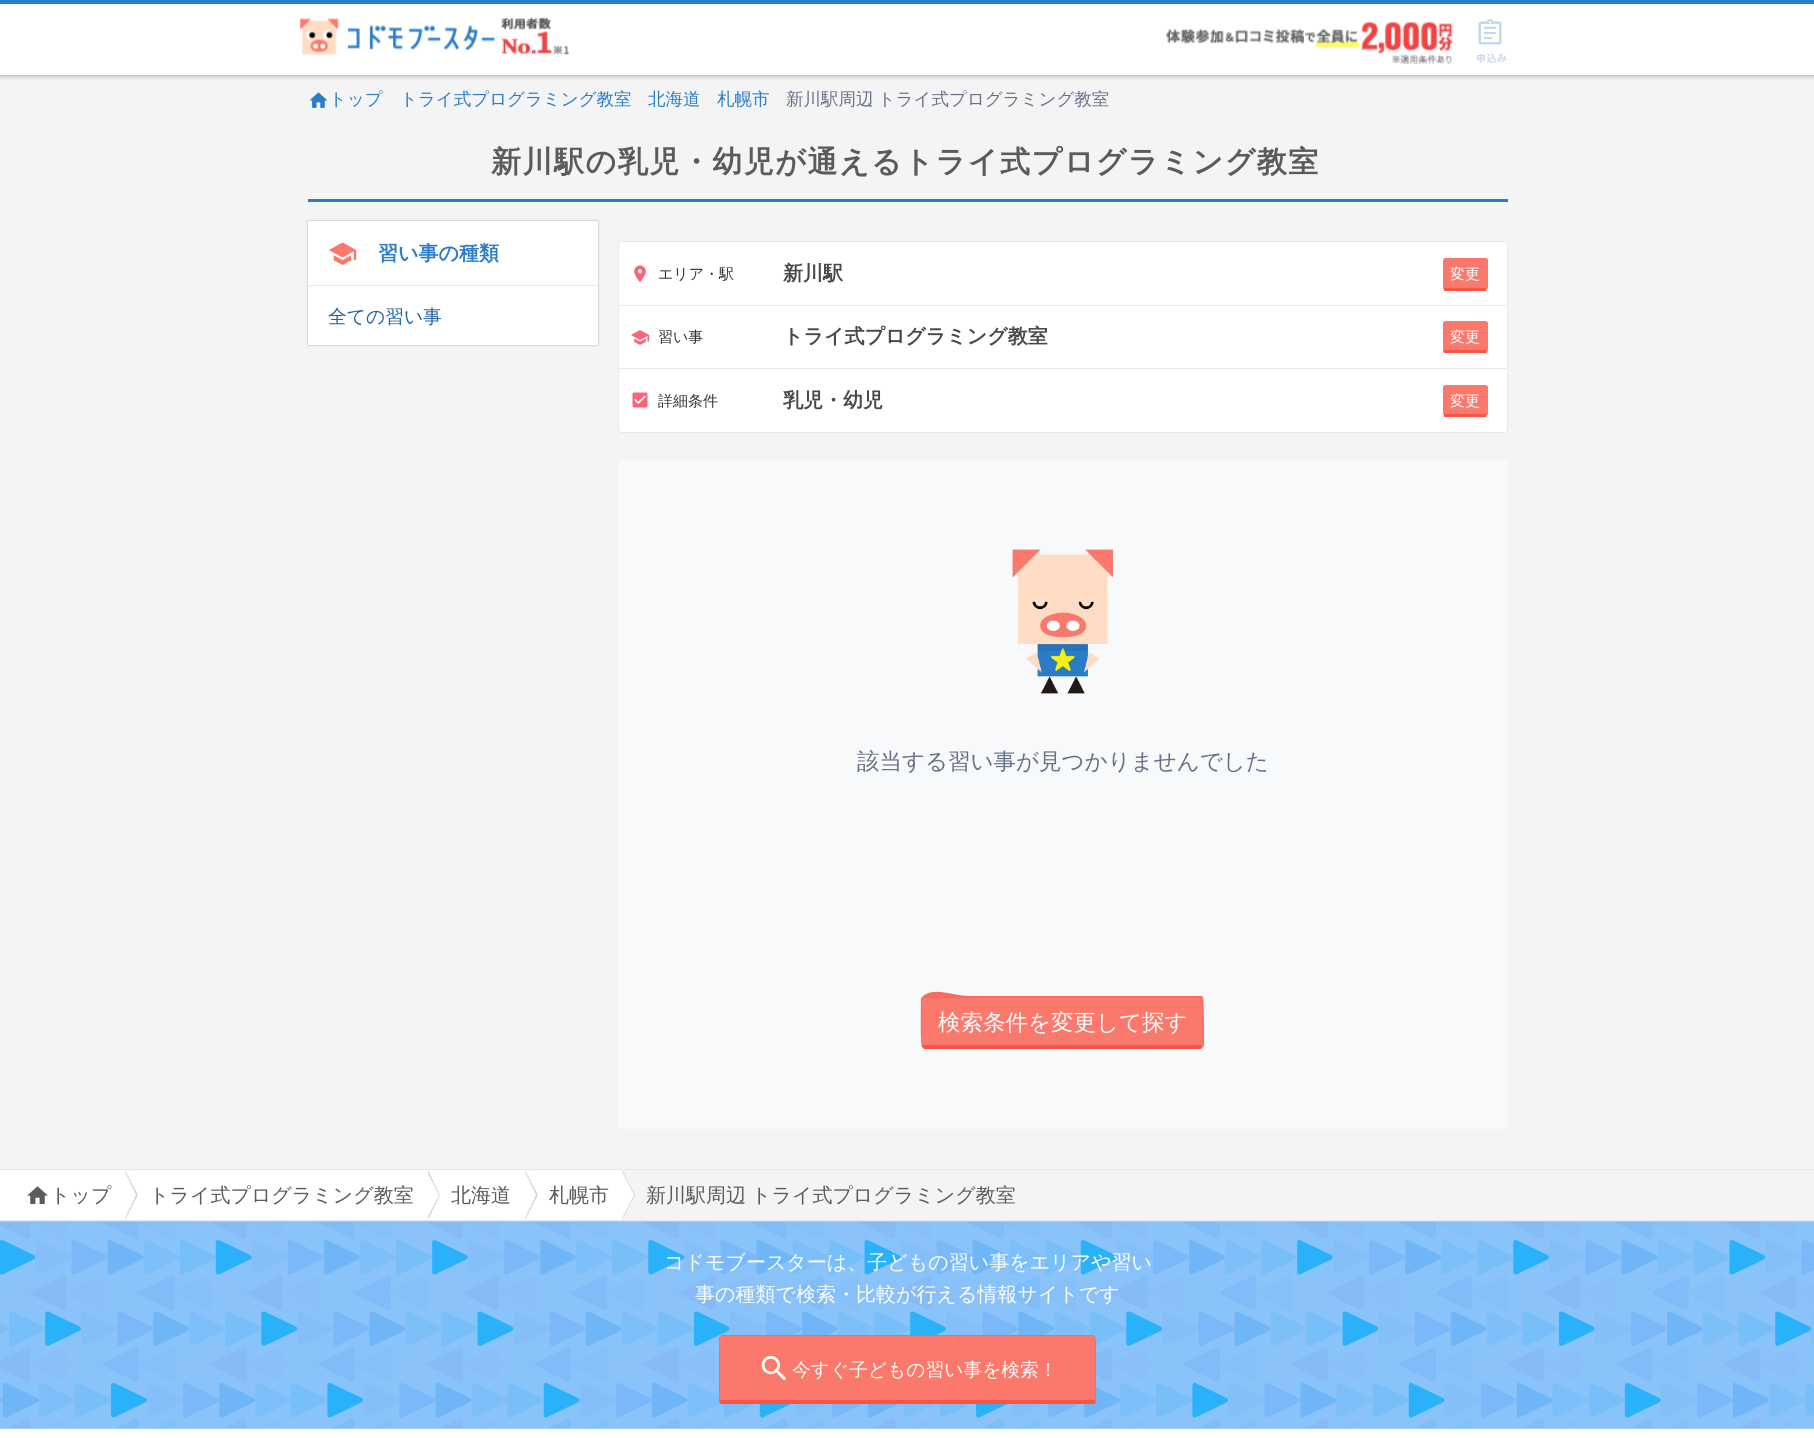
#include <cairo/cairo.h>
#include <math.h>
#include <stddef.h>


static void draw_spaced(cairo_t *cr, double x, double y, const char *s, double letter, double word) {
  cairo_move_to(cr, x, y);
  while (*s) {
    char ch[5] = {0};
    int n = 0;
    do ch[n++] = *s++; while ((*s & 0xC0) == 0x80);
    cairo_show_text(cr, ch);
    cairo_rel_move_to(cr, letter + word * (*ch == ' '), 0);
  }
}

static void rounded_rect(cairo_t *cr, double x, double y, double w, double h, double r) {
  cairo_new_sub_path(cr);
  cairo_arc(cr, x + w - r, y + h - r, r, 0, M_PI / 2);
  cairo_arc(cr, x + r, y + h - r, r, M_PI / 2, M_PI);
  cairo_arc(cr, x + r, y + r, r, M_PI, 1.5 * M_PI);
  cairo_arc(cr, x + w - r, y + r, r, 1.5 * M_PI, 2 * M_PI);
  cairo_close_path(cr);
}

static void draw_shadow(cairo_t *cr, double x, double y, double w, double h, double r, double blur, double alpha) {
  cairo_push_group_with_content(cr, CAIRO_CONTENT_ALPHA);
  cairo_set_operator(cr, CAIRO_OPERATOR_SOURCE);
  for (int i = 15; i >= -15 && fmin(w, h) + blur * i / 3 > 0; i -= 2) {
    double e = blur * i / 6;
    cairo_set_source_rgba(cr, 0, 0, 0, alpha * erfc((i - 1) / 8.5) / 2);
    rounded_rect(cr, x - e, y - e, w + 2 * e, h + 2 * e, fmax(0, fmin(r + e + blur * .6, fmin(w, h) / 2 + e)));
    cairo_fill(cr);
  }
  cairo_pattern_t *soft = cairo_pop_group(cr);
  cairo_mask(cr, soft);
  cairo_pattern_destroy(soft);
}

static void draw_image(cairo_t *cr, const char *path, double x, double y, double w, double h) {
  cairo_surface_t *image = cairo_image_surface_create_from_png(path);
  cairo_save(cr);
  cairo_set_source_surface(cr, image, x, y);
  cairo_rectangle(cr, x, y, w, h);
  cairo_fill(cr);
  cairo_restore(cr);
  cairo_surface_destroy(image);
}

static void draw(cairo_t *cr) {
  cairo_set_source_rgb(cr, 244 / 255.0, 244 / 255.0, 244 / 255.0);
  cairo_paint(cr);
  cairo_set_source_rgb(cr, 0, 0, 0);
  draw_shadow(cr, 0, 1, 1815, 75, 0, 2.5, 0.3);
  cairo_set_source_rgb(cr, 1, 1, 1);
  cairo_rectangle(cr, 0, 4, 1814, 71);
  cairo_fill(cr);
  cairo_set_source_rgb(cr, 42 / 255.0, 124 / 255.0, 200 / 255.0);
  cairo_rectangle(cr, 0, 0, 1814, 4);
  cairo_fill(cr);
  draw_image(cr, "images/1.png", 300, 17, 269, 39);
  draw_image(cr, "images/2.png", 1166, 22, 287, 42);
  draw_image(cr, "images/3.png", 1478, 19, 24, 26);
  draw_image(cr, "images/4.png", 1477, 53, 30, 10);
  draw_image(cr, "images/5.png", 309, 92, 19, 16);
  cairo_rectangle(cr, 308, 199, 1200, 3);
  cairo_fill(cr);
  cairo_set_source_rgb(cr, 0, 0, 0);
  draw_shadow(cr, 308, 221, 290, 124, 0, 1, 0.3);
  cairo_set_source_rgb(cr, 1, 1, 1);
  cairo_rectangle(cr, 308, 221, 290, 64);
  cairo_fill(cr);
  cairo_set_source_rgb(cr, 232 / 255.0, 232 / 255.0, 232 / 255.0);
  cairo_rectangle(cr, 308, 285, 290, 1);
  cairo_fill(cr);
  draw_image(cr, "images/6.png", 329, 242, 28, 23);
  cairo_set_source_rgb(cr, 1, 1, 1);
  cairo_rectangle(cr, 308, 286, 290, 59);
  cairo_fill(cr);
  rounded_rect(cr, 618.5, 241.5, 889, 191, 3.5);
  cairo_fill_preserve(cr);
  cairo_set_source_rgb(cr, 232 / 255.0, 232 / 255.0, 232 / 255.0);
  cairo_set_line_width(cr, 1);
  cairo_stroke(cr);
  cairo_rectangle(cr, 619, 305, 887, 1);
  cairo_fill(cr);
  draw_image(cr, "images/7.png", 634, 265, 12, 17);
  cairo_set_source_rgb(cr, 251 / 255.0, 121 / 255.0, 108 / 255.0);
  rounded_rect(cr, 1443, 258, 45, 32, 2.5);
  cairo_fill(cr);
  cairo_set_source_rgb(cr, 250 / 255.0, 85 / 255.0, 68 / 255.0);
  cairo_rectangle(cr, 1444, 288, 42, 3);
  cairo_fill(cr);
  cairo_set_source_rgb(cr, 232 / 255.0, 232 / 255.0, 232 / 255.0);
  cairo_rectangle(cr, 619, 368, 887, 1);
  cairo_fill(cr);
  draw_image(cr, "images/8.png", 631, 330, 19, 15);
  cairo_set_source_rgb(cr, 251 / 255.0, 121 / 255.0, 108 / 255.0);
  rounded_rect(cr, 1443, 321, 45, 32, 2.5);
  cairo_fill(cr);
  cairo_set_source_rgb(cr, 250 / 255.0, 85 / 255.0, 68 / 255.0);
  cairo_rectangle(cr, 1444, 350, 42, 3);
  cairo_fill(cr);
  draw_image(cr, "images/9.png", 632, 392, 16, 16);
  cairo_set_source_rgb(cr, 251 / 255.0, 121 / 255.0, 108 / 255.0);
  rounded_rect(cr, 1443, 385, 45, 31, 2.5);
  cairo_fill(cr);
  cairo_set_source_rgb(cr, 250 / 255.0, 85 / 255.0, 68 / 255.0);
  cairo_rectangle(cr, 1444, 414, 42, 3);
  cairo_fill(cr);
  cairo_set_source_rgb(cr, 248 / 255.0, 249 / 255.0, 250 / 255.0);
  rounded_rect(cr, 618, 460, 890, 419, 2.5);
  cairo_fill(cr);
  draw_image(cr, "images/10.png", 1012, 549, 101, 145);
  rounded_rect(cr, 618, 879, 890, 250, 2.5);
  cairo_fill(cr);
  cairo_set_source_rgb(cr, 251 / 255.0, 121 / 255.0, 108 / 255.0);
  cairo_new_path(cr);
  cairo_move_to(cr, 924, 998);
  cairo_line_to(cr, 1201, 998);
  cairo_curve_to(cr, 1202, 998, 1202, 998, 1202, 999);
  cairo_line_to(cr, 1202, 1045);
  cairo_line_to(cr, 922, 1045);
  cairo_line_to(cr, 922, 999);
  cairo_curve_to(cr, 922, 998, 923, 998, 924, 998);
  cairo_close_path(cr);
  cairo_fill(cr);
  cairo_set_source_rgb(cr, 251 / 255.0, 107 / 255.0, 93 / 255.0);
  cairo_new_path(cr);
  cairo_move_to(cr, 924, 998);
  cairo_line_to(cr, 923, 998);
  cairo_line_to(cr, 922, 997);
  cairo_curve_to(cr, 933, 986, 953, 996, 969, 996);
  cairo_line_to(cr, 1202, 996);
  cairo_line_to(cr, 1203, 997);
  cairo_line_to(cr, 1202, 998);
  cairo_line_to(cr, 1201, 998);
  cairo_close_path(cr);
  cairo_fill(cr);
  cairo_new_path(cr);
  cairo_move_to(cr, 1204, 1046);
  cairo_line_to(cr, 1203, 1047);
  cairo_line_to(cr, 1202, 1044);
  cairo_line_to(cr, 1202, 998);
  cairo_line_to(cr, 1203, 997);
  cairo_curve_to(cr, 1204, 998, 1204, 1041, 1204, 1046);
  cairo_close_path(cr);
  cairo_fill(cr);
  cairo_set_source_rgb(cr, 250 / 255.0, 85 / 255.0, 68 / 255.0);
  cairo_new_path(cr);
  cairo_move_to(cr, 924, 1049);
  cairo_line_to(cr, 922, 1047);
  cairo_line_to(cr, 922, 1045);
  cairo_line_to(cr, 1202, 1045);
  cairo_line_to(cr, 1202, 1044);
  cairo_line_to(cr, 1203, 1047);
  cairo_line_to(cr, 1201, 1049);
  cairo_close_path(cr);
  cairo_fill(cr);
  cairo_set_source_rgb(cr, 251 / 255.0, 107 / 255.0, 93 / 255.0);
  cairo_new_path(cr);
  cairo_move_to(cr, 921, 998);
  cairo_line_to(cr, 922, 997);
  cairo_line_to(cr, 923, 998);
  cairo_line_to(cr, 922, 999);
  cairo_line_to(cr, 922, 1045);
  cairo_line_to(cr, 922, 1047);
  cairo_curve_to(cr, 920, 1045, 921, 1003, 921, 998);
  cairo_close_path(cr);
  cairo_fill(cr);
  cairo_set_source_rgb(cr, 232 / 255.0, 232 / 255.0, 232 / 255.0);
  cairo_rectangle(cr, 0, 1169, 1814, 1);
  cairo_fill(cr);
  cairo_rectangle(cr, 0, 1220, 1814, 1);
  cairo_fill(cr);
  cairo_set_source_rgb(cr, 1, 1, 1);
  cairo_rectangle(cr, 0, 1170, 621, 50);
  cairo_fill(cr);
  draw_image(cr, "images/11.png", 27, 1186, 21, 18);
  cairo_set_source_rgb(cr, 216 / 255.0, 216 / 255.0, 216 / 255.0);
  cairo_new_path(cr);
  cairo_move_to(cr, 125, 1220);
  cairo_line_to(cr, 125, 1170);
  cairo_line_to(cr, 138, 1195);
  cairo_close_path(cr);
  cairo_fill(cr);
  cairo_set_source_rgb(cr, 1, 1, 1);
  cairo_new_path(cr);
  cairo_move_to(cr, 124, 1220);
  cairo_line_to(cr, 124, 1170);
  cairo_line_to(cr, 136, 1195);
  cairo_close_path(cr);
  cairo_fill(cr);
  cairo_set_source_rgb(cr, 216 / 255.0, 216 / 255.0, 216 / 255.0);
  cairo_new_path(cr);
  cairo_move_to(cr, 428, 1220);
  cairo_line_to(cr, 428, 1170);
  cairo_line_to(cr, 440, 1195);
  cairo_close_path(cr);
  cairo_fill(cr);
  cairo_set_source_rgb(cr, 1, 1, 1);
  cairo_new_path(cr);
  cairo_move_to(cr, 426, 1220);
  cairo_line_to(cr, 426, 1170);
  cairo_line_to(cr, 439, 1195);
  cairo_close_path(cr);
  cairo_fill(cr);
  cairo_set_source_rgb(cr, 216 / 255.0, 216 / 255.0, 216 / 255.0);
  cairo_new_path(cr);
  cairo_move_to(cr, 525, 1220);
  cairo_line_to(cr, 525, 1170);
  cairo_line_to(cr, 538, 1195);
  cairo_close_path(cr);
  cairo_fill(cr);
  cairo_set_source_rgb(cr, 1, 1, 1);
  cairo_new_path(cr);
  cairo_move_to(cr, 524, 1220);
  cairo_line_to(cr, 524, 1170);
  cairo_line_to(cr, 536, 1195);
  cairo_close_path(cr);
  cairo_fill(cr);
  cairo_set_source_rgb(cr, 216 / 255.0, 216 / 255.0, 216 / 255.0);
  cairo_new_path(cr);
  cairo_move_to(cr, 622, 1220);
  cairo_line_to(cr, 622, 1170);
  cairo_line_to(cr, 635, 1195);
  cairo_close_path(cr);
  cairo_fill(cr);
  cairo_set_source_rgb(cr, 1, 1, 1);
  cairo_new_path(cr);
  cairo_move_to(cr, 621, 1220);
  cairo_line_to(cr, 621, 1170);
  cairo_line_to(cr, 634, 1195);
  cairo_close_path(cr);
  cairo_fill(cr);
  draw_image(cr, "images/12.png", 0, 1221, 1814, 208);
  cairo_set_source_rgb(cr, 251 / 255.0, 121 / 255.0, 108 / 255.0);
  cairo_new_path(cr);
  cairo_move_to(cr, 722, 1336);
  cairo_line_to(cr, 1092, 1336);
  cairo_curve_to(cr, 1094, 1336, 1095, 1337, 1095, 1339);
  cairo_line_to(cr, 1095, 1400);
  cairo_line_to(cr, 720, 1400);
  cairo_line_to(cr, 720, 1339);
  cairo_curve_to(cr, 720, 1337, 721, 1336, 722, 1336);
  cairo_close_path(cr);
  cairo_fill(cr);
  cairo_set_source_rgb(cr, 251 / 255.0, 107 / 255.0, 93 / 255.0);
  cairo_new_path(cr);
  cairo_move_to(cr, 722, 1335);
  cairo_line_to(cr, 720, 1336);
  cairo_line_to(cr, 721, 1337);
  cairo_line_to(cr, 722, 1336);
  cairo_line_to(cr, 1092, 1336);
  cairo_line_to(cr, 1094, 1337);
  cairo_line_to(cr, 1095, 1336);
  cairo_curve_to(cr, 1094, 1335, 1093, 1335, 1092, 1335);
  cairo_close_path(cr);
  cairo_fill(cr);
  cairo_new_path(cr);
  cairo_move_to(cr, 1095, 1336);
  cairo_line_to(cr, 1096, 1339);
  cairo_line_to(cr, 1096, 1402);
  cairo_line_to(cr, 1095, 1400);
  cairo_line_to(cr, 1095, 1339);
  cairo_line_to(cr, 1094, 1337);
  cairo_close_path(cr);
  cairo_fill(cr);
  cairo_set_source_rgb(cr, 250 / 255.0, 85 / 255.0, 68 / 255.0);
  cairo_new_path(cr);
  cairo_move_to(cr, 721, 1404);
  cairo_line_to(cr, 719, 1402);
  cairo_line_to(cr, 720, 1400);
  cairo_line_to(cr, 1095, 1400);
  cairo_line_to(cr, 1096, 1402);
  cairo_line_to(cr, 1094, 1404);
  cairo_close_path(cr);
  cairo_fill(cr);
  cairo_set_source_rgb(cr, 251 / 255.0, 107 / 255.0, 93 / 255.0);
  cairo_new_path(cr);
  cairo_move_to(cr, 720, 1336);
  cairo_line_to(cr, 719, 1339);
  cairo_line_to(cr, 719, 1402);
  cairo_line_to(cr, 720, 1400);
  cairo_line_to(cr, 720, 1339);
  cairo_line_to(cr, 721, 1337);
  cairo_close_path(cr);
  cairo_fill(cr);
  draw_image(cr, "images/13.png", 761, 1355, 26, 26);
  cairo_set_source_rgb(cr, 1, 1, 1);
  cairo_rectangle(cr, 0, 1429, 1814, 9);
  cairo_fill(cr);
  cairo_select_font_face(cr, "WenQuanYi Zen Hei Medium", CAIRO_FONT_SLANT_NORMAL, CAIRO_FONT_WEIGHT_NORMAL);
  cairo_set_font_size(cr, 17.5);
  cairo_set_source_rgb(cr, 42 / 255.0, 124 / 255.0, 200 / 255.0);
  cairo_move_to(cr, 329, 105);
  cairo_show_text(cr, "トップ");
  cairo_move_to(cr, 400, 105);
  cairo_show_text(cr, "トライ式プログラミング教室");
  cairo_move_to(cr, 648, 105);
  cairo_show_text(cr, "北海道");
  cairo_move_to(cr, 717, 105);
  cairo_show_text(cr, "札幌市");
  cairo_set_source_rgb(cr, 102 / 255.0, 113 / 255.0, 137 / 255.0);
  draw_spaced(cr, 786, 105, "新川駅周辺 トライ式プログラミング教室", 0, -1);
  cairo_select_font_face(cr, "WenQuanYi Zen Hei", CAIRO_FONT_SLANT_NORMAL, CAIRO_FONT_WEIGHT_BOLD);
  cairo_set_font_size(cr, 30);
  cairo_set_source_rgb(cr, 91 / 255.0, 91 / 255.0, 91 / 255.0);
  draw_spaced(cr, 491, 172, "新川駅の乳児・幼児が通えるトライ式プログラミング教室", 1.5, 0);
  cairo_set_font_size(cr, 20);
  cairo_set_source_rgb(cr, 42 / 255.0, 124 / 255.0, 200 / 255.0);
  cairo_move_to(cr, 378, 260);
  cairo_show_text(cr, "習い事の種類");
  cairo_select_font_face(cr, "WenQuanYi Zen Hei Medium", CAIRO_FONT_SLANT_NORMAL, CAIRO_FONT_WEIGHT_NORMAL);
  cairo_set_font_size(cr, 18.75);
  cairo_set_source_rgb(cr, 33 / 255.0, 98 / 255.0, 158 / 255.0);
  cairo_move_to(cr, 328, 323);
  cairo_show_text(cr, "全ての習い事");
  cairo_set_font_size(cr, 15);
  cairo_set_source_rgb(cr, 51 / 255.0, 51 / 255.0, 51 / 255.0);
  cairo_move_to(cr, 658, 279);
  cairo_show_text(cr, "エリア・駅");
  cairo_select_font_face(cr, "WenQuanYi Zen Hei", CAIRO_FONT_SLANT_NORMAL, CAIRO_FONT_WEIGHT_BOLD);
  cairo_set_font_size(cr, 20);
  cairo_set_source_rgb(cr, 72 / 255.0, 72 / 255.0, 72 / 255.0);
  cairo_move_to(cr, 783, 280);
  cairo_show_text(cr, "新川駅");
  cairo_select_font_face(cr, "WenQuanYi Zen Hei Medium", CAIRO_FONT_SLANT_NORMAL, CAIRO_FONT_WEIGHT_NORMAL);
  cairo_set_font_size(cr, 15);
  cairo_set_source_rgb(cr, 1, 1, 1);
  cairo_move_to(cr, 1450, 279);
  cairo_show_text(cr, "変更");
  cairo_set_source_rgb(cr, 51 / 255.0, 51 / 255.0, 51 / 255.0);
  cairo_move_to(cr, 658, 342);
  cairo_show_text(cr, "習い事");
  cairo_select_font_face(cr, "WenQuanYi Zen Hei", CAIRO_FONT_SLANT_NORMAL, CAIRO_FONT_WEIGHT_BOLD);
  cairo_set_font_size(cr, 20);
  cairo_set_source_rgb(cr, 72 / 255.0, 72 / 255.0, 72 / 255.0);
  cairo_move_to(cr, 783, 343);
  cairo_show_text(cr, "トライ式プログラミング教室");
  cairo_select_font_face(cr, "WenQuanYi Zen Hei Medium", CAIRO_FONT_SLANT_NORMAL, CAIRO_FONT_WEIGHT_NORMAL);
  cairo_set_font_size(cr, 15);
  cairo_set_source_rgb(cr, 1, 1, 1);
  cairo_move_to(cr, 1450, 342);
  cairo_show_text(cr, "変更");
  cairo_set_source_rgb(cr, 51 / 255.0, 51 / 255.0, 51 / 255.0);
  cairo_move_to(cr, 658, 406);
  cairo_show_text(cr, "詳細条件");
  cairo_select_font_face(cr, "WenQuanYi Zen Hei", CAIRO_FONT_SLANT_NORMAL, CAIRO_FONT_WEIGHT_BOLD);
  cairo_set_font_size(cr, 20);
  cairo_set_source_rgb(cr, 72 / 255.0, 72 / 255.0, 72 / 255.0);
  cairo_move_to(cr, 783, 407);
  cairo_show_text(cr, "乳児・幼児");
  cairo_select_font_face(cr, "WenQuanYi Zen Hei Medium", CAIRO_FONT_SLANT_NORMAL, CAIRO_FONT_WEIGHT_NORMAL);
  cairo_set_font_size(cr, 15);
  cairo_set_source_rgb(cr, 1, 1, 1);
  cairo_move_to(cr, 1450, 406);
  cairo_show_text(cr, "変更");
  cairo_set_font_size(cr, 22.5);
  cairo_set_source_rgb(cr, 102 / 255.0, 113 / 255.0, 137 / 255.0);
  cairo_move_to(cr, 857, 769);
  cairo_show_text(cr, "該当する習い事が見つかりませんでした");
  cairo_set_source_rgb(cr, 1, 1, 1);
  cairo_move_to(cr, 938, 1030);
  cairo_show_text(cr, "検索条件を変更して探す");
  cairo_set_font_size(cr, 20);
  cairo_set_source_rgb(cr, 91 / 255.0, 91 / 255.0, 91 / 255.0);
  cairo_move_to(cr, 50, 1202);
  cairo_show_text(cr, "トップ");
  cairo_move_to(cr, 149, 1202);
  cairo_show_text(cr, "トライ式プログラミング教室");
  cairo_move_to(cr, 451, 1202);
  cairo_show_text(cr, "北海道");
  cairo_move_to(cr, 549, 1202);
  cairo_show_text(cr, "札幌市");
  draw_spaced(cr, 646, 1202, "新川駅周辺 トライ式プログラミング教室", 0, -1);
  cairo_set_source_rgb(cr, 1, 1, 1);
  cairo_move_to(cr, 664, 1269);
  cairo_show_text(cr, "コドモブースターは、子どもの習い事をエリアや習い");
  cairo_move_to(cr, 695, 1301);
  cairo_show_text(cr, "事の種類で検索・比較が行える情報サイトです");
  cairo_set_font_size(cr, 18.75);
  cairo_move_to(cr, 792, 1376);
  cairo_show_text(cr, "今すぐ子どもの習い事を検索！");
}

int main(void) {
  cairo_surface_t *surface = cairo_image_surface_create(CAIRO_FORMAT_RGB24, 1814, 1438);
  cairo_t *cr = cairo_create(surface);
  cairo_font_options_t *options = cairo_font_options_create();
  cairo_font_options_set_hint_metrics(options, CAIRO_HINT_METRICS_OFF);
  cairo_font_options_set_hint_style(options, CAIRO_HINT_STYLE_NONE);
  cairo_set_font_options(cr, options);
  cairo_set_miter_limit(cr, 4);
  draw(cr);
  cairo_surface_write_to_png(surface, "out.png");
  cairo_font_options_destroy(options);
  cairo_destroy(cr);
  cairo_surface_destroy(surface);
  return 0;
}
